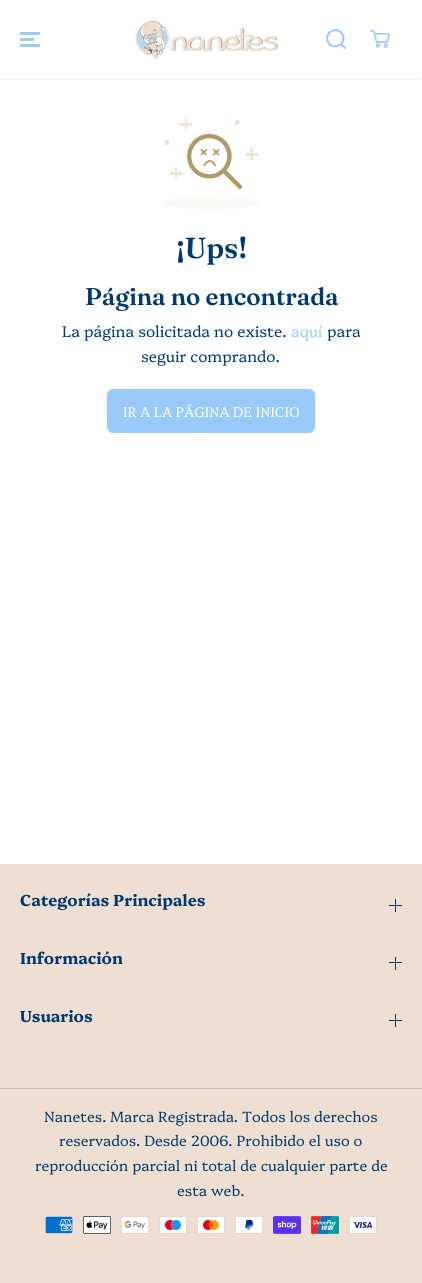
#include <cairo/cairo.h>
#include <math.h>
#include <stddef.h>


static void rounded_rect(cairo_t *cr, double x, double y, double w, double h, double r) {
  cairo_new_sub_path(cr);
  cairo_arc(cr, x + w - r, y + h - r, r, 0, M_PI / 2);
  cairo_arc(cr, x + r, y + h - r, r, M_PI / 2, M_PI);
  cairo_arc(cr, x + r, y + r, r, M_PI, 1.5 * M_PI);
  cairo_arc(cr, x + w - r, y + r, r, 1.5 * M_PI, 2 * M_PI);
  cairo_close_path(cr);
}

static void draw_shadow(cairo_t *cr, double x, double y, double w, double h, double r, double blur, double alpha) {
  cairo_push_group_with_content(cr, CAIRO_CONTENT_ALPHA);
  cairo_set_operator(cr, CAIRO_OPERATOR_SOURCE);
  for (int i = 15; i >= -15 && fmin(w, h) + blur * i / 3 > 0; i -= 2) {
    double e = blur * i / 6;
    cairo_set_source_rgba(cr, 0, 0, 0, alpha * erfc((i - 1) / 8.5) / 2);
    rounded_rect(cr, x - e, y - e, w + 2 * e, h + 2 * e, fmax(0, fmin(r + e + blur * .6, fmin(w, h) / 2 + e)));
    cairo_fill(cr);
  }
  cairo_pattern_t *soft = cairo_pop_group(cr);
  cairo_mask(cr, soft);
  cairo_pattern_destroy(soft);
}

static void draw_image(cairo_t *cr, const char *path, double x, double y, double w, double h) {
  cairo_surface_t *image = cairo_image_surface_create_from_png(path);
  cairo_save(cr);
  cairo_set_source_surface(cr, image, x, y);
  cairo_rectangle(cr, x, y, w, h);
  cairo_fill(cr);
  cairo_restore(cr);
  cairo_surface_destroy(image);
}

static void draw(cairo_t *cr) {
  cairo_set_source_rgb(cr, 1, 1, 1);
  cairo_paint(cr);
  cairo_save(cr);
  cairo_rectangle(cr, 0, 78, 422, 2);
  cairo_clip(cr);
  cairo_set_source_rgb(cr, 0, 0, 0);
  draw_shadow(cr, 0, 2, 422, 78, 0, 1, 0.05);
  cairo_restore(cr);
  cairo_set_source_rgb(cr, 154 / 255.0, 202 / 255.0, 249 / 255.0);
  cairo_rectangle(cr, 20, 38, 14, 3);
  cairo_fill(cr);
  cairo_rectangle(cr, 20, 32, 20, 3);
  cairo_fill(cr);
  cairo_rectangle(cr, 20, 44, 20, 3);
  cairo_fill(cr);
  draw_image(cr, "images/1.png", 135, 20, 143, 39);
  draw_image(cr, "images/2.png", 326, 29, 20, 20);
  draw_image(cr, "images/3.png", 370, 30, 20, 18);
  draw_image(cr, "images/4.png", 161, 118, 100, 91);
  rounded_rect(cr, 107.5, 389.5, 207, 43, 5.5);
  cairo_fill_preserve(cr);
  cairo_set_line_width(cr, 1);
  cairo_stroke(cr);
  cairo_set_source_rgb(cr, 239 / 255.0, 223 / 255.0, 210 / 255.0);
  cairo_rectangle(cr, 0, 864, 422, 419);
  cairo_fill(cr);
  cairo_set_source_rgb(cr, 0, 58 / 255.0, 112 / 255.0);
  cairo_rectangle(cr, 395, 899, 1, 13);
  cairo_fill(cr);
  cairo_rectangle(cr, 389, 905, 13, 1);
  cairo_fill(cr);
  cairo_rectangle(cr, 395, 957, 1, 13);
  cairo_fill(cr);
  cairo_rectangle(cr, 389, 962, 13, 1);
  cairo_fill(cr);
  cairo_rectangle(cr, 395, 1014, 1, 13);
  cairo_fill(cr);
  cairo_rectangle(cr, 389, 1020, 13, 1);
  cairo_fill(cr);
  cairo_set_source_rgb(cr, 191 / 255.0, 190 / 255.0, 190 / 255.0);
  cairo_rectangle(cr, 0, 1088, 422, 1);
  cairo_fill(cr);
  draw_image(cr, "images/5.png", 45, 1216, 28, 18);
  draw_image(cr, "images/6.png", 83, 1216, 28, 18);
  draw_image(cr, "images/7.png", 121, 1216, 28, 18);
  draw_image(cr, "images/8.png", 159, 1216, 28, 18);
  draw_image(cr, "images/9.png", 197, 1216, 28, 18);
  draw_image(cr, "images/10.png", 235, 1216, 28, 18);
  draw_image(cr, "images/11.png", 273, 1216, 28, 18);
  draw_image(cr, "images/12.png", 311, 1216, 28, 18);
  draw_image(cr, "images/13.png", 349, 1216, 28, 18);
  cairo_select_font_face(cr, "Fraunces SemiBold", CAIRO_FONT_SLANT_NORMAL, CAIRO_FONT_WEIGHT_NORMAL);
  cairo_set_font_size(cr, 29);
  cairo_set_source_rgb(cr, 0, 58 / 255.0, 112 / 255.0);
  cairo_move_to(cr, 176, 258);
  cairo_show_text(cr, "¡Ups!");
  cairo_select_font_face(cr, "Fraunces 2 SemiBold", CAIRO_FONT_SLANT_NORMAL, CAIRO_FONT_WEIGHT_NORMAL);
  cairo_set_font_size(cr, 24.25);
  cairo_move_to(cr, 85, 305);
  cairo_show_text(cr, "Página no encontrada");
  cairo_select_font_face(cr, "Platypi Light", CAIRO_FONT_SLANT_NORMAL, CAIRO_FONT_WEIGHT_NORMAL);
  cairo_set_font_size(cr, 15.5);
  cairo_move_to(cr, 62, 337);
  cairo_show_text(cr, "La página solicitada no existe.");
  cairo_set_source_rgb(cr, 154 / 255.0, 202 / 255.0, 249 / 255.0);
  cairo_move_to(cr, 291, 337);
  cairo_show_text(cr, "aquí");
  cairo_set_source_rgb(cr, 0, 58 / 255.0, 112 / 255.0);
  cairo_move_to(cr, 327, 337);
  cairo_show_text(cr, "para");
  cairo_move_to(cr, 141, 362);
  cairo_show_text(cr, "seguir comprando.");
  cairo_set_font_size(cr, 14);
  cairo_set_source_rgb(cr, 1, 1, 1);
  cairo_move_to(cr, 123, 417);
  cairo_show_text(cr, "IR A LA PÁGINA DE INICIO");
  cairo_select_font_face(cr, "Platypi", CAIRO_FONT_SLANT_NORMAL, CAIRO_FONT_WEIGHT_BOLD);
  cairo_set_font_size(cr, 16);
  cairo_set_source_rgb(cr, 0, 58 / 255.0, 112 / 255.0);
  cairo_move_to(cr, 20, 906);
  cairo_show_text(cr, "Categorías Principales");
  cairo_move_to(cr, 20, 964);
  cairo_show_text(cr, "Información");
  cairo_move_to(cr, 20, 1022);
  cairo_show_text(cr, "Usuarios");
  cairo_select_font_face(cr, "Platypi Light", CAIRO_FONT_SLANT_NORMAL, CAIRO_FONT_WEIGHT_NORMAL);
  cairo_set_font_size(cr, 14.75);
  cairo_move_to(cr, 44, 1122);
  cairo_show_text(cr, "Nanetes. Marca Registrada. Todos los derechos");
  cairo_move_to(cr, 59, 1146);
  cairo_show_text(cr, "reservados. Desde 2006. Prohibido el uso o");
  cairo_move_to(cr, 35, 1171);
  cairo_show_text(cr, "reproducción parcial ni total de cualquier parte de");
  cairo_move_to(cr, 177, 1196);
  cairo_show_text(cr, "esta web.");
}

int main(void) {
  cairo_surface_t *surface = cairo_image_surface_create(CAIRO_FORMAT_RGB24, 422, 1283);
  cairo_t *cr = cairo_create(surface);
  cairo_font_options_t *options = cairo_font_options_create();
  cairo_font_options_set_hint_metrics(options, CAIRO_HINT_METRICS_OFF);
  cairo_font_options_set_hint_style(options, CAIRO_HINT_STYLE_NONE);
  cairo_set_font_options(cr, options);
  cairo_set_miter_limit(cr, 4);
  draw(cr);
  cairo_surface_write_to_png(surface, "out.png");
  cairo_font_options_destroy(options);
  cairo_destroy(cr);
  cairo_surface_destroy(surface);
  return 0;
}
